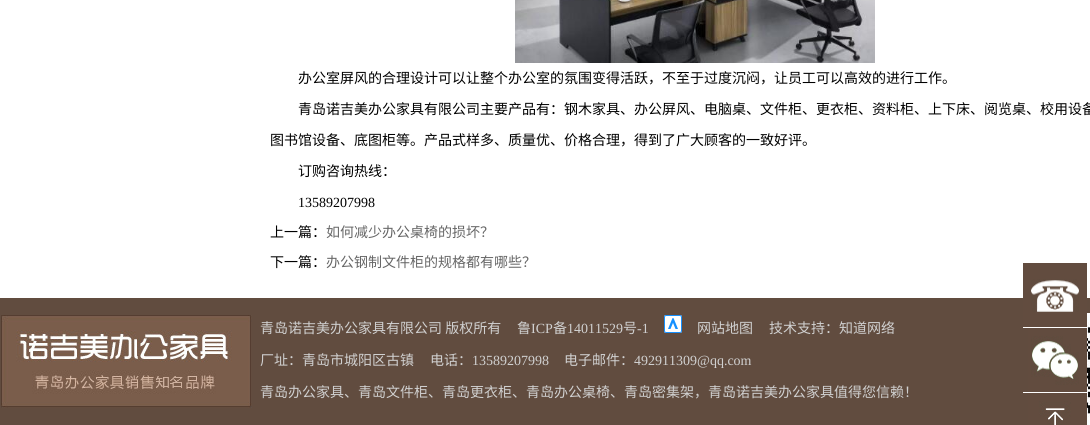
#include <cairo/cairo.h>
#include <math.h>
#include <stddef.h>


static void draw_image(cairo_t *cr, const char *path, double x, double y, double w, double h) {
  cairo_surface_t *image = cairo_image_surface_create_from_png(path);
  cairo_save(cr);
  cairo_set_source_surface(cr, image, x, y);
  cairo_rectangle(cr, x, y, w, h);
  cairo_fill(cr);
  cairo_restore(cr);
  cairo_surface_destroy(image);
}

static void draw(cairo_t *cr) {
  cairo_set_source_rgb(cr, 1, 1, 1);
  cairo_paint(cr);
  draw_image(cr, "images/1.png", 515, 0, 360, 63);
  cairo_set_source_rgb(cr, 97 / 255.0, 76 / 255.0, 63 / 255.0);
  cairo_rectangle(cr, 0, 298, 1090, 127);
  cairo_fill(cr);
  draw_image(cr, "images/2.png", 1, 315, 251, 93);
  draw_image(cr, "images/3.png", 664, 315, 18, 18);
  draw_image(cr, "images/4.png", 1087, 313, 3, 112);
  draw_image(cr, "images/5.png", 1023, 263, 64, 64);
  cairo_set_source_rgb(cr, 1, 1, 1);
  cairo_rectangle(cr, 1023, 327, 64, 1);
  cairo_fill(cr);
  draw_image(cr, "images/6.png", 1028, 328, 59, 64);
  cairo_rectangle(cr, 1023, 392, 64, 1);
  cairo_fill(cr);
  draw_image(cr, "images/7.png", 1028, 393, 59, 32);
  cairo_select_font_face(cr, "Noto Sans CJK SC", CAIRO_FONT_SLANT_NORMAL, CAIRO_FONT_WEIGHT_NORMAL);
  cairo_set_font_size(cr, 14);
  cairo_set_source_rgb(cr, 0, 0, 0);
  cairo_move_to(cr, 298, 83);
  cairo_show_text(cr, "办公室屏风的合理设计可以让整个办公室的氛围变得活跃，不至于过度沉闷，让员工可以高效的进行工作。");
  cairo_move_to(cr, 298, 114);
  cairo_show_text(cr, "青岛诺吉美办公家具有限公司主要产品有：钢木家具、办公屏风、电脑桌、文件柜、更衣柜、资料柜、上下床、阅览桌、校用设备");
  cairo_move_to(cr, 270, 145);
  cairo_show_text(cr, "图书馆设备、底图柜等。产品式样多、质量优、价格合理，得到了广大顾客的一致好评。");
  cairo_move_to(cr, 298, 176);
  cairo_show_text(cr, "订购咨询热线：");
  cairo_select_font_face(cr, "Liberation Serif", CAIRO_FONT_SLANT_NORMAL, CAIRO_FONT_WEIGHT_NORMAL);
  cairo_move_to(cr, 298, 207);
  cairo_show_text(cr, "13589207998");
  cairo_select_font_face(cr, "Noto Sans CJK SC", CAIRO_FONT_SLANT_NORMAL, CAIRO_FONT_WEIGHT_NORMAL);
  cairo_move_to(cr, 270, 237);
  cairo_show_text(cr, "上一篇：");
  cairo_set_source_rgb(cr, 102 / 255.0, 102 / 255.0, 102 / 255.0);
  cairo_move_to(cr, 326, 237);
  cairo_show_text(cr, "如何减少办公桌椅的损坏？");
  cairo_set_source_rgb(cr, 0, 0, 0);
  cairo_move_to(cr, 270, 267);
  cairo_show_text(cr, "下一篇：");
  cairo_set_source_rgb(cr, 102 / 255.0, 102 / 255.0, 102 / 255.0);
  cairo_move_to(cr, 326, 267);
  cairo_show_text(cr, "办公钢制文件柜的规格都有哪些？");
  cairo_set_source_rgb(cr, 208 / 255.0, 208 / 255.0, 208 / 255.0);
  cairo_move_to(cr, 260, 333);
  cairo_show_text(cr, "青岛诺吉美办公家具有限公司 版权所有");
  cairo_move_to(cr, 517, 333);
  cairo_show_text(cr, "鲁");
  cairo_select_font_face(cr, "Liberation Serif", CAIRO_FONT_SLANT_NORMAL, CAIRO_FONT_WEIGHT_NORMAL);
  cairo_move_to(cr, 531, 333);
  cairo_show_text(cr, "ICP");
  cairo_select_font_face(cr, "Noto Sans CJK SC", CAIRO_FONT_SLANT_NORMAL, CAIRO_FONT_WEIGHT_NORMAL);
  cairo_move_to(cr, 553, 333);
  cairo_show_text(cr, "备");
  cairo_select_font_face(cr, "Liberation Serif", CAIRO_FONT_SLANT_NORMAL, CAIRO_FONT_WEIGHT_NORMAL);
  cairo_move_to(cr, 567, 333);
  cairo_show_text(cr, "14011529");
  cairo_select_font_face(cr, "Noto Sans CJK SC", CAIRO_FONT_SLANT_NORMAL, CAIRO_FONT_WEIGHT_NORMAL);
  cairo_move_to(cr, 623, 333);
  cairo_show_text(cr, "号");
  cairo_select_font_face(cr, "Liberation Serif", CAIRO_FONT_SLANT_NORMAL, CAIRO_FONT_WEIGHT_NORMAL);
  cairo_move_to(cr, 637, 333);
  cairo_show_text(cr, "-1");
  cairo_select_font_face(cr, "Noto Sans CJK SC", CAIRO_FONT_SLANT_NORMAL, CAIRO_FONT_WEIGHT_NORMAL);
  cairo_move_to(cr, 697, 333);
  cairo_show_text(cr, "网站地图");
  cairo_move_to(cr, 769, 333);
  cairo_show_text(cr, "技术支持：知道网络");
  cairo_move_to(cr, 260, 365);
  cairo_show_text(cr, "厂址：青岛市城阳区古镇");
  cairo_move_to(cr, 430, 365);
  cairo_show_text(cr, "电话：");
  cairo_select_font_face(cr, "Liberation Serif", CAIRO_FONT_SLANT_NORMAL, CAIRO_FONT_WEIGHT_NORMAL);
  cairo_move_to(cr, 472, 365);
  cairo_show_text(cr, "13589207998");
  cairo_select_font_face(cr, "Noto Sans CJK SC", CAIRO_FONT_SLANT_NORMAL, CAIRO_FONT_WEIGHT_NORMAL);
  cairo_move_to(cr, 564, 365);
  cairo_show_text(cr, "电子邮件：");
  cairo_select_font_face(cr, "Liberation Serif", CAIRO_FONT_SLANT_NORMAL, CAIRO_FONT_WEIGHT_NORMAL);
  cairo_move_to(cr, 634, 365);
  cairo_show_text(cr, "492911309@qq.com");
  cairo_select_font_face(cr, "Noto Sans CJK SC", CAIRO_FONT_SLANT_NORMAL, CAIRO_FONT_WEIGHT_NORMAL);
  cairo_move_to(cr, 260, 397);
  cairo_show_text(cr, "青岛办公家具、青岛文件柜、青岛更衣柜、青岛办公桌椅、青岛密集架，青岛诺吉美办公家具值得您信赖！");
}

int main(void) {
  cairo_surface_t *surface = cairo_image_surface_create(CAIRO_FORMAT_RGB24, 1090, 425);
  cairo_t *cr = cairo_create(surface);
  cairo_font_options_t *options = cairo_font_options_create();
  cairo_font_options_set_hint_metrics(options, CAIRO_HINT_METRICS_OFF);
  cairo_font_options_set_hint_style(options, CAIRO_HINT_STYLE_NONE);
  cairo_set_font_options(cr, options);
  cairo_set_miter_limit(cr, 4);
  draw(cr);
  cairo_surface_write_to_png(surface, "out.png");
  cairo_font_options_destroy(options);
  cairo_destroy(cr);
  cairo_surface_destroy(surface);
  return 0;
}
